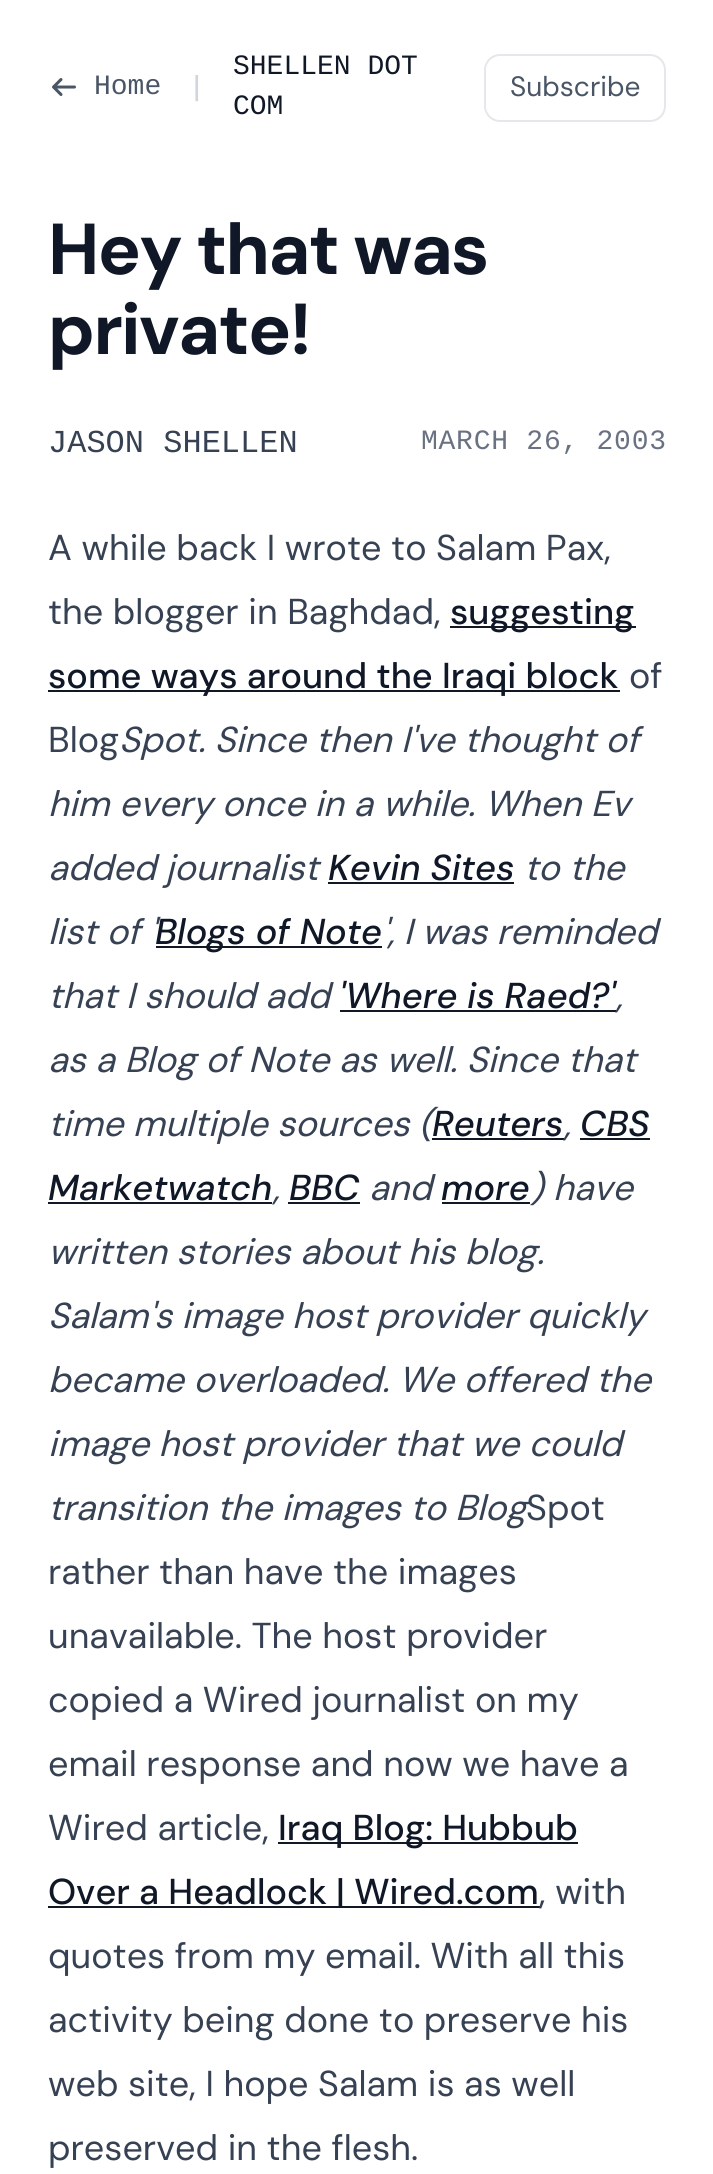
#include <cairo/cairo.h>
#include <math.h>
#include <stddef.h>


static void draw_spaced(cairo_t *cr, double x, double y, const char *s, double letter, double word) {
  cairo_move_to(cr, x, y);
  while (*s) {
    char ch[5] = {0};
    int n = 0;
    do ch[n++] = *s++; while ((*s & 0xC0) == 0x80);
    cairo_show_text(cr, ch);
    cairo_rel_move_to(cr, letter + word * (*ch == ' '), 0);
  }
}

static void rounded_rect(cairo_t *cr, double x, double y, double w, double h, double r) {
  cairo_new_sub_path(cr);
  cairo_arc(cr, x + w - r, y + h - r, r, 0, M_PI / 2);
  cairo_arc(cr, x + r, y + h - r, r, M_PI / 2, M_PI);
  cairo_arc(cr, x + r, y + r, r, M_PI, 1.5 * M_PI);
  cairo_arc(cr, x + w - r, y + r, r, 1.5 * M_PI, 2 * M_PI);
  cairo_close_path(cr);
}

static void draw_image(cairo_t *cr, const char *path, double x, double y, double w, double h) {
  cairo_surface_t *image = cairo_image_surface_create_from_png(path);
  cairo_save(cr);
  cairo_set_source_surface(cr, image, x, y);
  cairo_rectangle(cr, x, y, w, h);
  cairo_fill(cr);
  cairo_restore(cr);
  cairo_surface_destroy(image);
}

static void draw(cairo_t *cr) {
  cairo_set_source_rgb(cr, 1, 1, 1);
  cairo_paint(cr);
  draw_image(cr, "images/1.png", 52, 78, 24, 18);
  rounded_rect(cr, 485, 55, 180, 66, 15);
  cairo_set_source_rgb(cr, 229 / 255.0, 231 / 255.0, 235 / 255.0);
  cairo_stroke(cr);
  cairo_set_source_rgb(cr, 16 / 255.0, 24 / 255.0, 40 / 255.0);
  cairo_rectangle(cr, 450, 626, 186, 2);
  cairo_fill(cr);
  cairo_rectangle(cr, 48, 690, 572, 2);
  cairo_fill(cr);
  cairo_rectangle(cr, 328, 882, 186, 2);
  cairo_fill(cr);
  cairo_rectangle(cr, 156, 946, 226, 2);
  cairo_fill(cr);
  cairo_rectangle(cr, 340, 1010, 276, 2);
  cairo_fill(cr);
  cairo_rectangle(cr, 580, 1138, 70, 2);
  cairo_fill(cr);
  cairo_rectangle(cr, 48, 1202, 224, 2);
  cairo_fill(cr);
  cairo_rectangle(cr, 288, 1202, 72, 2);
  cairo_fill(cr);
  cairo_rectangle(cr, 442, 1202, 88, 2);
  cairo_fill(cr);
  cairo_rectangle(cr, 278, 1842, 300, 2);
  cairo_fill(cr);
  cairo_rectangle(cr, 48, 1906, 492, 2);
  cairo_fill(cr);
  cairo_select_font_face(cr, "Liberation Mono", CAIRO_FONT_SLANT_NORMAL, CAIRO_FONT_WEIGHT_NORMAL);
  cairo_set_font_size(cr, 28);
  cairo_set_source_rgb(cr, 74 / 255.0, 85 / 255.0, 101 / 255.0);
  cairo_move_to(cr, 94, 94);
  cairo_show_text(cr, "Home");
  cairo_select_font_face(cr, "DM Sans", CAIRO_FONT_SLANT_NORMAL, CAIRO_FONT_WEIGHT_NORMAL);
  cairo_set_font_size(cr, 32);
  cairo_set_source_rgb(cr, 209 / 255.0, 213 / 255.0, 220 / 255.0);
  cairo_move_to(cr, 193, 98);
  cairo_show_text(cr, "|");
  cairo_select_font_face(cr, "Liberation Mono", CAIRO_FONT_SLANT_NORMAL, CAIRO_FONT_WEIGHT_NORMAL);
  cairo_set_font_size(cr, 28);
  cairo_set_source_rgb(cr, 16 / 255.0, 24 / 255.0, 40 / 255.0);
  cairo_move_to(cr, 233, 74);
  cairo_show_text(cr, "SHELLEN DOT");
  cairo_move_to(cr, 233, 114);
  cairo_show_text(cr, "COM");
  cairo_select_font_face(cr, "DM Sans", CAIRO_FONT_SLANT_NORMAL, CAIRO_FONT_WEIGHT_NORMAL);
  cairo_set_source_rgb(cr, 74 / 255.0, 85 / 255.0, 101 / 255.0);
  cairo_move_to(cr, 510, 96);
  cairo_show_text(cr, "Subscribe");
  cairo_select_font_face(cr, "DM Sans", CAIRO_FONT_SLANT_NORMAL, CAIRO_FONT_WEIGHT_BOLD);
  cairo_set_font_size(cr, 72);
  cairo_set_source_rgb(cr, 16 / 255.0, 24 / 255.0, 40 / 255.0);
  draw_spaced(cr, 48, 274, "Hey that was", -1.75, 0);
  draw_spaced(cr, 48, 354, "private!", -1.75, 0);
  cairo_select_font_face(cr, "Liberation Mono", CAIRO_FONT_SLANT_NORMAL, CAIRO_FONT_WEIGHT_NORMAL);
  cairo_set_font_size(cr, 32);
  cairo_set_source_rgb(cr, 54 / 255.0, 65 / 255.0, 83 / 255.0);
  cairo_move_to(cr, 48, 452);
  cairo_show_text(cr, "JASON SHELLEN");
  cairo_set_font_size(cr, 28);
  cairo_set_source_rgb(cr, 106 / 255.0, 114 / 255.0, 130 / 255.0);
  draw_spaced(cr, 421, 449, "MARCH 26, 2003", 0.75, 0);
  cairo_select_font_face(cr, "DM Sans", CAIRO_FONT_SLANT_NORMAL, CAIRO_FONT_WEIGHT_NORMAL);
  cairo_set_font_size(cr, 36);
  cairo_set_source_rgb(cr, 54 / 255.0, 65 / 255.0, 83 / 255.0);
  cairo_move_to(cr, 48, 560);
  cairo_show_text(cr, "A while back I wrote to Salam Pax,");
  cairo_move_to(cr, 48, 624);
  cairo_show_text(cr, "the blogger in Baghdad,");
  cairo_select_font_face(cr, "DM Sans Medium", CAIRO_FONT_SLANT_NORMAL, CAIRO_FONT_WEIGHT_NORMAL);
  cairo_set_source_rgb(cr, 16 / 255.0, 24 / 255.0, 40 / 255.0);
  cairo_move_to(cr, 450, 624);
  cairo_show_text(cr, "suggesting");
  cairo_move_to(cr, 48, 688);
  cairo_show_text(cr, "some ways around the Iraqi block");
  cairo_select_font_face(cr, "DM Sans", CAIRO_FONT_SLANT_NORMAL, CAIRO_FONT_WEIGHT_NORMAL);
  cairo_set_source_rgb(cr, 54 / 255.0, 65 / 255.0, 83 / 255.0);
  cairo_move_to(cr, 629, 688);
  cairo_show_text(cr, "of");
  cairo_move_to(cr, 48, 752);
  cairo_show_text(cr, "Blog");
  cairo_select_font_face(cr, "DM Sans", CAIRO_FONT_SLANT_ITALIC, CAIRO_FONT_WEIGHT_NORMAL);
  cairo_move_to(cr, 119, 752);
  cairo_show_text(cr, "Spot. Since then I've thought of");
  cairo_move_to(cr, 48, 816);
  cairo_show_text(cr, "him every once in a while. When Ev");
  cairo_move_to(cr, 48, 880);
  cairo_show_text(cr, "added journalist");
  cairo_select_font_face(cr, "DM Sans Medium", CAIRO_FONT_SLANT_ITALIC, CAIRO_FONT_WEIGHT_NORMAL);
  cairo_set_source_rgb(cr, 16 / 255.0, 24 / 255.0, 40 / 255.0);
  cairo_move_to(cr, 328, 880);
  cairo_show_text(cr, "Kevin Sites");
  cairo_select_font_face(cr, "DM Sans", CAIRO_FONT_SLANT_ITALIC, CAIRO_FONT_WEIGHT_NORMAL);
  cairo_set_source_rgb(cr, 54 / 255.0, 65 / 255.0, 83 / 255.0);
  cairo_move_to(cr, 524, 880);
  cairo_show_text(cr, "to the");
  cairo_move_to(cr, 48, 944);
  cairo_show_text(cr, "list of '");
  cairo_select_font_face(cr, "DM Sans Medium", CAIRO_FONT_SLANT_ITALIC, CAIRO_FONT_WEIGHT_NORMAL);
  cairo_set_source_rgb(cr, 16 / 255.0, 24 / 255.0, 40 / 255.0);
  cairo_move_to(cr, 155, 944);
  cairo_show_text(cr, "Blogs of Note");
  cairo_select_font_face(cr, "DM Sans", CAIRO_FONT_SLANT_ITALIC, CAIRO_FONT_WEIGHT_NORMAL);
  cairo_set_source_rgb(cr, 54 / 255.0, 65 / 255.0, 83 / 255.0);
  cairo_move_to(cr, 382, 944);
  cairo_show_text(cr, "', I was reminded");
  cairo_move_to(cr, 48, 1008);
  cairo_show_text(cr, "that I should add");
  cairo_select_font_face(cr, "DM Sans Medium", CAIRO_FONT_SLANT_ITALIC, CAIRO_FONT_WEIGHT_NORMAL);
  cairo_set_source_rgb(cr, 16 / 255.0, 24 / 255.0, 40 / 255.0);
  cairo_move_to(cr, 339, 1008);
  cairo_show_text(cr, "'Where is Raed?'");
  cairo_select_font_face(cr, "DM Sans", CAIRO_FONT_SLANT_ITALIC, CAIRO_FONT_WEIGHT_NORMAL);
  cairo_set_source_rgb(cr, 54 / 255.0, 65 / 255.0, 83 / 255.0);
  cairo_move_to(cr, 616, 1008);
  cairo_show_text(cr, ",");
  cairo_move_to(cr, 48, 1072);
  cairo_show_text(cr, "as a Blog of Note as well. Since that");
  cairo_move_to(cr, 48, 1136);
  cairo_show_text(cr, "time multiple sources (");
  cairo_select_font_face(cr, "DM Sans Medium", CAIRO_FONT_SLANT_ITALIC, CAIRO_FONT_WEIGHT_NORMAL);
  cairo_set_source_rgb(cr, 16 / 255.0, 24 / 255.0, 40 / 255.0);
  cairo_move_to(cr, 432, 1136);
  cairo_show_text(cr, "Reuters");
  cairo_rectangle(cr, 432, 1138, 132, 2);
  cairo_fill(cr);
  cairo_select_font_face(cr, "DM Sans", CAIRO_FONT_SLANT_ITALIC, CAIRO_FONT_WEIGHT_NORMAL);
  cairo_set_source_rgb(cr, 54 / 255.0, 65 / 255.0, 83 / 255.0);
  cairo_move_to(cr, 564, 1136);
  cairo_show_text(cr, ",");
  cairo_select_font_face(cr, "DM Sans Medium", CAIRO_FONT_SLANT_ITALIC, CAIRO_FONT_WEIGHT_NORMAL);
  cairo_set_source_rgb(cr, 16 / 255.0, 24 / 255.0, 40 / 255.0);
  cairo_move_to(cr, 580, 1136);
  cairo_show_text(cr, "CBS");
  cairo_move_to(cr, 48, 1200);
  cairo_show_text(cr, "Marketwatch");
  cairo_select_font_face(cr, "DM Sans", CAIRO_FONT_SLANT_ITALIC, CAIRO_FONT_WEIGHT_NORMAL);
  cairo_set_source_rgb(cr, 54 / 255.0, 65 / 255.0, 83 / 255.0);
  cairo_move_to(cr, 273, 1200);
  cairo_show_text(cr, ",");
  cairo_select_font_face(cr, "DM Sans Medium", CAIRO_FONT_SLANT_ITALIC, CAIRO_FONT_WEIGHT_NORMAL);
  cairo_set_source_rgb(cr, 16 / 255.0, 24 / 255.0, 40 / 255.0);
  cairo_move_to(cr, 289, 1200);
  cairo_show_text(cr, "BBC");
  cairo_select_font_face(cr, "DM Sans", CAIRO_FONT_SLANT_ITALIC, CAIRO_FONT_WEIGHT_NORMAL);
  cairo_set_source_rgb(cr, 54 / 255.0, 65 / 255.0, 83 / 255.0);
  cairo_move_to(cr, 369, 1200);
  cairo_show_text(cr, "and");
  cairo_select_font_face(cr, "DM Sans Medium", CAIRO_FONT_SLANT_ITALIC, CAIRO_FONT_WEIGHT_NORMAL);
  cairo_set_source_rgb(cr, 16 / 255.0, 24 / 255.0, 40 / 255.0);
  cairo_move_to(cr, 441, 1200);
  cairo_show_text(cr, "more");
  cairo_select_font_face(cr, "DM Sans", CAIRO_FONT_SLANT_ITALIC, CAIRO_FONT_WEIGHT_NORMAL);
  cairo_set_source_rgb(cr, 54 / 255.0, 65 / 255.0, 83 / 255.0);
  cairo_move_to(cr, 530, 1200);
  cairo_show_text(cr, ") have");
  cairo_move_to(cr, 48, 1264);
  cairo_show_text(cr, "written stories about his blog.");
  cairo_move_to(cr, 48, 1328);
  cairo_show_text(cr, "Salam's image host provider quickly");
  cairo_move_to(cr, 48, 1392);
  cairo_show_text(cr, "became overloaded. We offered the");
  cairo_move_to(cr, 48, 1456);
  cairo_show_text(cr, "image host provider that we could");
  cairo_move_to(cr, 48, 1520);
  cairo_show_text(cr, "transition the images to Blog");
  cairo_select_font_face(cr, "DM Sans", CAIRO_FONT_SLANT_NORMAL, CAIRO_FONT_WEIGHT_NORMAL);
  cairo_move_to(cr, 526, 1520);
  cairo_show_text(cr, "Spot");
  cairo_move_to(cr, 48, 1584);
  cairo_show_text(cr, "rather than have the images");
  cairo_move_to(cr, 48, 1648);
  cairo_show_text(cr, "unavailable. The host provider");
  cairo_move_to(cr, 48, 1712);
  cairo_show_text(cr, "copied a Wired journalist on my");
  cairo_move_to(cr, 48, 1776);
  cairo_show_text(cr, "email response and now we have a");
  cairo_move_to(cr, 48, 1840);
  cairo_show_text(cr, "Wired article,");
  cairo_select_font_face(cr, "DM Sans Medium", CAIRO_FONT_SLANT_NORMAL, CAIRO_FONT_WEIGHT_NORMAL);
  cairo_set_source_rgb(cr, 16 / 255.0, 24 / 255.0, 40 / 255.0);
  cairo_move_to(cr, 278, 1840);
  cairo_show_text(cr, "Iraq Blog: Hubbub");
  cairo_move_to(cr, 48, 1904);
  cairo_show_text(cr, "Over a Headlock | Wired.com");
  cairo_select_font_face(cr, "DM Sans", CAIRO_FONT_SLANT_NORMAL, CAIRO_FONT_WEIGHT_NORMAL);
  cairo_set_source_rgb(cr, 54 / 255.0, 65 / 255.0, 83 / 255.0);
  cairo_move_to(cr, 539, 1904);
  cairo_show_text(cr, ", with");
  cairo_move_to(cr, 48, 1968);
  cairo_show_text(cr, "quotes from my email. With all this");
  cairo_move_to(cr, 48, 2032);
  cairo_show_text(cr, "activity being done to preserve his");
  cairo_move_to(cr, 48, 2096);
  cairo_show_text(cr, "web site, I hope Salam is as well");
  cairo_move_to(cr, 48, 2160);
  cairo_show_text(cr, "preserved in the flesh.");
}

int main(void) {
  cairo_surface_t *surface = cairo_image_surface_create(CAIRO_FORMAT_RGB24, 713, 2174);
  cairo_t *cr = cairo_create(surface);
  cairo_font_options_t *options = cairo_font_options_create();
  cairo_font_options_set_hint_metrics(options, CAIRO_HINT_METRICS_OFF);
  cairo_font_options_set_hint_style(options, CAIRO_HINT_STYLE_NONE);
  cairo_set_font_options(cr, options);
  cairo_set_miter_limit(cr, 4);
  draw(cr);
  cairo_surface_write_to_png(surface, "out.png");
  cairo_font_options_destroy(options);
  cairo_destroy(cr);
  cairo_surface_destroy(surface);
  return 0;
}
